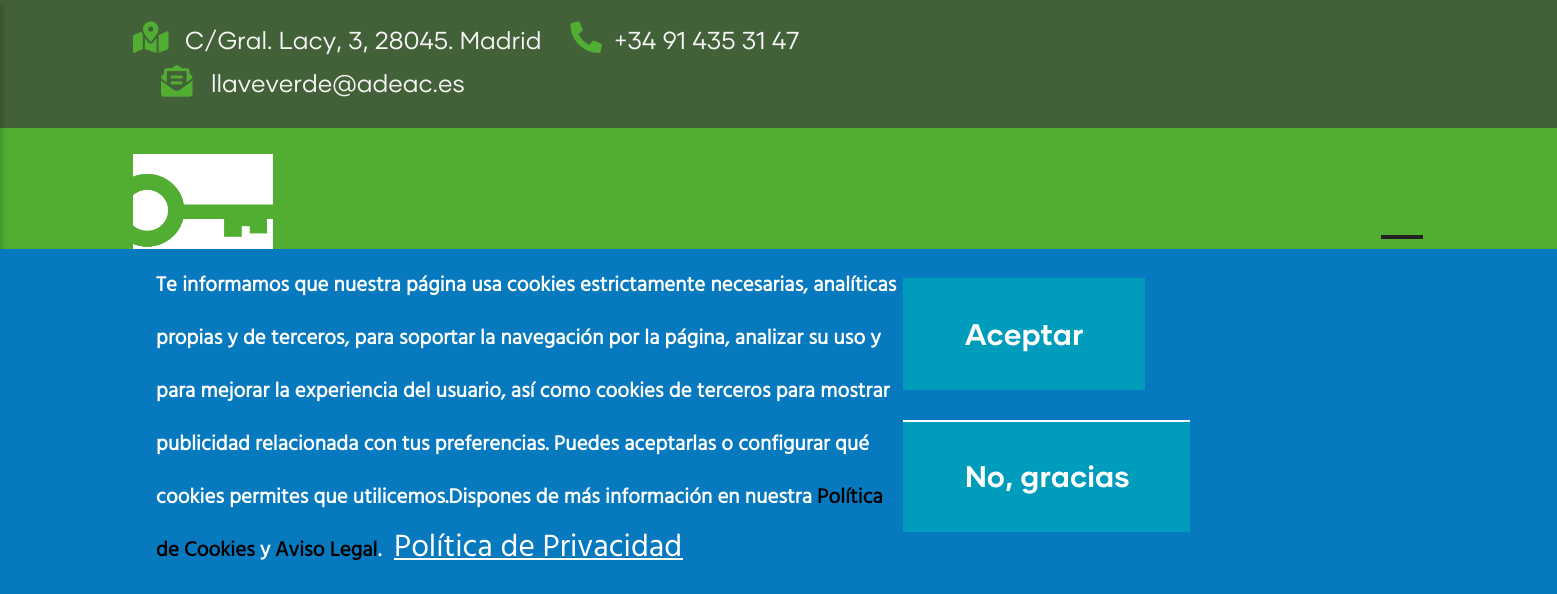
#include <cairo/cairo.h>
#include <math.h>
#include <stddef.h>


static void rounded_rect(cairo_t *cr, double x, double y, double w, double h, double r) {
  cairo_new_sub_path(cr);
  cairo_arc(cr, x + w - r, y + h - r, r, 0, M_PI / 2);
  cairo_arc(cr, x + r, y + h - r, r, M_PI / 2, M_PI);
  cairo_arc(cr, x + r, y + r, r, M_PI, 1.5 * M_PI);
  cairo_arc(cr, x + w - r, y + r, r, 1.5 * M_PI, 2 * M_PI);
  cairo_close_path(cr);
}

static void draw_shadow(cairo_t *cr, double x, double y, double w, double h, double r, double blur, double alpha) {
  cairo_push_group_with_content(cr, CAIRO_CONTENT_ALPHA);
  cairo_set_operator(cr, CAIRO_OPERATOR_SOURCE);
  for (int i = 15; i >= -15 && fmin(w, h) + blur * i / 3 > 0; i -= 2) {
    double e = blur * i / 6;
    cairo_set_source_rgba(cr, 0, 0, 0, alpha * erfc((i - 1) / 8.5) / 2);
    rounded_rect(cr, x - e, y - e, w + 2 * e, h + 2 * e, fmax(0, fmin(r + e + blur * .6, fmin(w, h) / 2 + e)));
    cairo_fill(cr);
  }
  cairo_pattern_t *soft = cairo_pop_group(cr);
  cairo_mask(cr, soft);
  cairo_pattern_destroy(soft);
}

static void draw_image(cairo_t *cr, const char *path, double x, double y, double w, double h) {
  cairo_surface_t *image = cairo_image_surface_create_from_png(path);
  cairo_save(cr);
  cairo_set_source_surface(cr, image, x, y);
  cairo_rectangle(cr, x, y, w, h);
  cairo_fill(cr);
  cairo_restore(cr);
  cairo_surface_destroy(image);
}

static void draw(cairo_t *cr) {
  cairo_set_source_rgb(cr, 81 / 255.0, 174 / 255.0, 50 / 255.0);
  cairo_paint(cr);
  cairo_set_source_rgb(cr, 67 / 255.0, 97 / 255.0, 57 / 255.0);
  cairo_rectangle(cr, 0, 0, 1557, 128);
  cairo_fill(cr);
  cairo_set_source_rgb(cr, 0, 0, 0);
  draw_shadow(cr, -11, 5, 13, 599, 0, 3.5, 0.2);
  cairo_set_source_rgb(cr, 34 / 255.0, 34 / 255.0, 34 / 255.0);
  cairo_rectangle(cr, 1381, 235, 42, 4);
  cairo_fill(cr);
  draw_image(cr, "images/1.png", 133, 154, 140, 95);
  draw_image(cr, "images/2.png", 133, 21, 36, 32);
  draw_image(cr, "images/3.png", 570, 21, 32, 32);
  draw_image(cr, "images/4.png", 161, 65, 32, 32);
  cairo_set_source_rgb(cr, 7 / 255.0, 121 / 255.0, 191 / 255.0);
  cairo_rectangle(cr, 0, 249, 1557, 345);
  cairo_fill(cr);
  cairo_set_source_rgb(cr, 1, 1, 1);
  cairo_rectangle(cr, 394, 558, 289, 2);
  cairo_fill(cr);
  cairo_set_source_rgb(cr, 0, 156 / 255.0, 188 / 255.0);
  cairo_rectangle(cr, 903, 278, 242, 112);
  cairo_fill(cr);
  cairo_rectangle(cr, 903, 422, 287, 110);
  cairo_fill(cr);
  cairo_set_source_rgb(cr, 1, 1, 1);
  cairo_rectangle(cr, 903, 420, 287, 2);
  cairo_fill(cr);
  cairo_select_font_face(cr, "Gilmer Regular", CAIRO_FONT_SLANT_NORMAL, CAIRO_FONT_WEIGHT_NORMAL);
  cairo_set_font_size(cr, 24.5);
  cairo_set_source_rgb(cr, 245 / 255.0, 245 / 255.0, 245 / 255.0);
  cairo_move_to(cr, 185, 49);
  cairo_show_text(cr, "C/Gral. Lacy, 3, 28045. Madrid");
  cairo_move_to(cr, 614, 49);
  cairo_show_text(cr, "+34 91 435 31 47");
  cairo_move_to(cr, 211, 92);
  cairo_show_text(cr, "llaveverde@adeac.es");
  cairo_select_font_face(cr, "Hind", CAIRO_FONT_SLANT_NORMAL, CAIRO_FONT_WEIGHT_BOLD);
  cairo_set_font_size(cr, 21);
  cairo_set_source_rgb(cr, 1, 1, 1);
  cairo_move_to(cr, 156, 291);
  cairo_show_text(cr, "Te informamos que nuestra página usa cookies estrictamente necesarias, analíticas");
  cairo_move_to(cr, 156, 344);
  cairo_show_text(cr, "propias y de terceros, para soportar la navegación por la página, analizar su uso y");
  cairo_move_to(cr, 156, 397);
  cairo_show_text(cr, "para mejorar la experiencia del usuario, así como cookies de terceros para mostrar");
  cairo_move_to(cr, 156, 450);
  cairo_show_text(cr, "publicidad relacionada con tus preferencias. Puedes aceptarlas o configurar qué");
  cairo_move_to(cr, 156, 503);
  cairo_show_text(cr, "cookies permites que utilicemos.Dispones de más información en nuestra");
  cairo_set_source_rgb(cr, 0, 0, 0);
  cairo_move_to(cr, 817, 503);
  cairo_show_text(cr, "Política");
  cairo_move_to(cr, 156, 556);
  cairo_show_text(cr, "de Cookies");
  cairo_set_source_rgb(cr, 1, 1, 1);
  cairo_move_to(cr, 260, 556);
  cairo_show_text(cr, "y");
  cairo_set_source_rgb(cr, 0, 0, 0);
  cairo_move_to(cr, 275, 556);
  cairo_show_text(cr, "Aviso Legal");
  cairo_set_source_rgb(cr, 1, 1, 1);
  cairo_move_to(cr, 378, 556);
  cairo_show_text(cr, ".");
  cairo_select_font_face(cr, "Hind", CAIRO_FONT_SLANT_NORMAL, CAIRO_FONT_WEIGHT_NORMAL);
  cairo_set_font_size(cr, 31.5);
  cairo_move_to(cr, 394, 556);
  cairo_show_text(cr, "Política de Privacidad");
  cairo_select_font_face(cr, "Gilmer", CAIRO_FONT_SLANT_NORMAL, CAIRO_FONT_WEIGHT_BOLD);
  cairo_set_font_size(cr, 29.75);
  cairo_move_to(cr, 965, 345);
  cairo_show_text(cr, "Aceptar");
  cairo_move_to(cr, 965, 487);
  cairo_show_text(cr, "No, gracias");
}

int main(void) {
  cairo_surface_t *surface = cairo_image_surface_create(CAIRO_FORMAT_RGB24, 1557, 594);
  cairo_t *cr = cairo_create(surface);
  cairo_font_options_t *options = cairo_font_options_create();
  cairo_font_options_set_hint_metrics(options, CAIRO_HINT_METRICS_OFF);
  cairo_font_options_set_hint_style(options, CAIRO_HINT_STYLE_NONE);
  cairo_set_font_options(cr, options);
  cairo_set_miter_limit(cr, 4);
  draw(cr);
  cairo_surface_write_to_png(surface, "out.png");
  cairo_font_options_destroy(options);
  cairo_destroy(cr);
  cairo_surface_destroy(surface);
  return 0;
}
